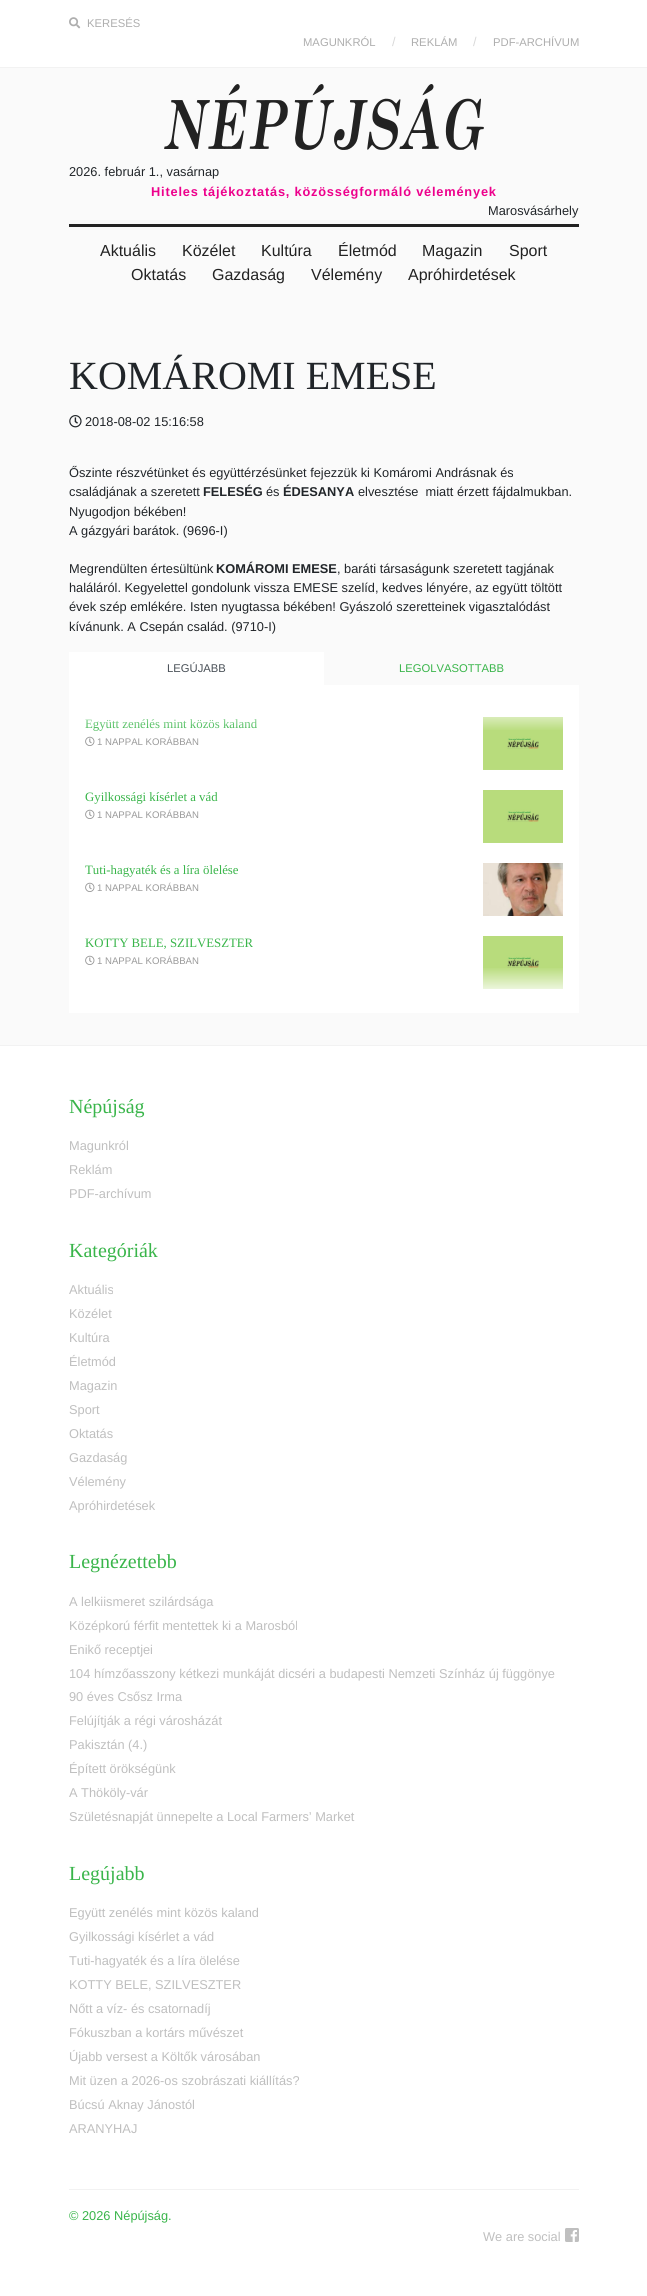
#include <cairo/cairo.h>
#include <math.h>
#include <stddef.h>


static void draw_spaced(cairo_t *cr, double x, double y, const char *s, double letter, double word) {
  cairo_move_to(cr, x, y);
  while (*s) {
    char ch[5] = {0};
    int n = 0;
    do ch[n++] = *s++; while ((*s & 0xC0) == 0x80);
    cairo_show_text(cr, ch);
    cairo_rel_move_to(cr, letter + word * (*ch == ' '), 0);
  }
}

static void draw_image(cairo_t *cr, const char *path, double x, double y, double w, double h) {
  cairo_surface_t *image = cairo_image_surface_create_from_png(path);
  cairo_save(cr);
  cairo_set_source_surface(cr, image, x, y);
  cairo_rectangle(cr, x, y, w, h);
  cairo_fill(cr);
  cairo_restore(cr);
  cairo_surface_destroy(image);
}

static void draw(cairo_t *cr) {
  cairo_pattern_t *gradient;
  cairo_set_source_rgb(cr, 250 / 255.0, 250 / 255.0, 250 / 255.0);
  cairo_paint(cr);
  cairo_set_source_rgb(cr, 1, 1, 1);
  cairo_rectangle(cr, 0, 0, 647, 67);
  cairo_fill(cr);
  cairo_set_source_rgb(cr, 242 / 255.0, 242 / 255.0, 242 / 255.0);
  cairo_rectangle(cr, 0, 67, 647, 1);
  cairo_fill(cr);
  draw_image(cr, "images/1.png", 69, 17, 12, 12);
  draw_image(cr, "images/2.png", 164, 84, 320, 66);
  cairo_set_source_rgb(cr, 34 / 255.0, 34 / 255.0, 34 / 255.0);
  cairo_rectangle(cr, 69, 224, 510, 3);
  cairo_fill(cr);
  draw_image(cr, "images/3.png", 69, 415, 13, 13);
  cairo_set_source_rgb(cr, 1, 1, 1);
  cairo_rectangle(cr, 69, 652, 255, 33);
  cairo_fill(cr);
  cairo_rectangle(cr, 69, 685, 510, 328);
  cairo_fill(cr);
  draw_image(cr, "images/4.png", 85, 736, 10, 10);
  draw_image(cr, "images/5.png", 483, 717, 80, 53);
  draw_image(cr, "images/4.png", 85, 809, 10, 10);
  draw_image(cr, "images/5.png", 483, 790, 80, 53);
  draw_image(cr, "images/4.png", 85, 882, 10, 10);
  draw_image(cr, "images/6.png", 483, 863, 80, 53);
  draw_image(cr, "images/4.png", 85, 955, 10, 10);
  draw_image(cr, "images/5.png", 483, 936, 80, 53);
  gradient = cairo_pattern_create_linear(324, 967, 324, 997);
  cairo_pattern_add_color_stop_rgba(gradient, 0, 1, 1, 1, 0);
  cairo_pattern_add_color_stop_rgba(gradient, 1, 1, 1, 1, 1);
  cairo_set_source(cr, gradient);
  cairo_pattern_destroy(gradient);
  cairo_rectangle(cr, 483, 968, 80, 21);
  cairo_fill(cr);
  cairo_set_source_rgb(cr, 1, 1, 1);
  cairo_rectangle(cr, 0, 1046, 647, 1250);
  cairo_fill(cr);
  cairo_set_source_rgb(cr, 242 / 255.0, 242 / 255.0, 242 / 255.0);
  cairo_rectangle(cr, 0, 1045, 647, 1);
  cairo_fill(cr);
  cairo_rectangle(cr, 69, 2189, 510, 1);
  cairo_fill(cr);
  draw_image(cr, "images/7.png", 565, 2228, 14, 14);
  cairo_select_font_face(cr, "Liberation Sans", CAIRO_FONT_SLANT_NORMAL, CAIRO_FONT_WEIGHT_NORMAL);
  cairo_set_font_size(cr, 11.25);
  cairo_set_source_rgb(cr, 174 / 255.0, 174 / 255.0, 174 / 255.0);
  cairo_move_to(cr, 87, 27);
  cairo_show_text(cr, "KERESÉS");
  cairo_move_to(cr, 303, 46);
  cairo_show_text(cr, "MAGUNKRÓL");
  cairo_set_font_size(cr, 12.8);
  cairo_set_source_rgb(cr, 217 / 255.0, 217 / 255.0, 217 / 255.0);
  cairo_move_to(cr, 392, 46);
  cairo_show_text(cr, "/");
  cairo_set_font_size(cr, 11.25);
  cairo_set_source_rgb(cr, 174 / 255.0, 174 / 255.0, 174 / 255.0);
  cairo_move_to(cr, 411, 46);
  cairo_show_text(cr, "REKLÁM");
  cairo_set_font_size(cr, 12.8);
  cairo_set_source_rgb(cr, 217 / 255.0, 217 / 255.0, 217 / 255.0);
  cairo_move_to(cr, 473, 46);
  cairo_show_text(cr, "/");
  cairo_set_font_size(cr, 11.25);
  cairo_set_source_rgb(cr, 174 / 255.0, 174 / 255.0, 174 / 255.0);
  cairo_move_to(cr, 493, 46);
  cairo_show_text(cr, "PDF-ARCHÍVUM");
  cairo_set_font_size(cr, 12.8);
  cairo_set_source_rgb(cr, 33 / 255.0, 37 / 255.0, 41 / 255.0);
  cairo_move_to(cr, 69, 176);
  cairo_show_text(cr, "2026. február 1., vasárnap");
  cairo_select_font_face(cr, "Liberation Sans", CAIRO_FONT_SLANT_NORMAL, CAIRO_FONT_WEIGHT_BOLD);
  cairo_set_source_rgb(cr, 237 / 255.0, 0, 140 / 255.0);
  draw_spaced(cr, 151, 196, "Hiteles tájékoztatás, közösségformáló vélemények", 0.8, 0);
  cairo_select_font_face(cr, "Liberation Sans", CAIRO_FONT_SLANT_NORMAL, CAIRO_FONT_WEIGHT_NORMAL);
  cairo_set_source_rgb(cr, 33 / 255.0, 37 / 255.0, 41 / 255.0);
  cairo_move_to(cr, 488, 215);
  cairo_show_text(cr, "Marosvásárhely");
  cairo_set_font_size(cr, 16);
  cairo_set_source_rgb(cr, 34 / 255.0, 34 / 255.0, 34 / 255.0);
  cairo_move_to(cr, 100, 256);
  cairo_show_text(cr, "Aktuális");
  cairo_move_to(cr, 182, 256);
  cairo_show_text(cr, "Közélet");
  cairo_move_to(cr, 261, 256);
  cairo_show_text(cr, "Kultúra");
  cairo_move_to(cr, 338, 256);
  cairo_show_text(cr, "Életmód");
  cairo_move_to(cr, 422, 256);
  cairo_show_text(cr, "Magazin");
  cairo_move_to(cr, 509, 256);
  cairo_show_text(cr, "Sport");
  cairo_move_to(cr, 131, 280);
  cairo_show_text(cr, "Oktatás");
  cairo_move_to(cr, 212, 280);
  cairo_show_text(cr, "Gazdaság");
  cairo_move_to(cr, 311, 280);
  cairo_show_text(cr, "Vélemény");
  cairo_move_to(cr, 408, 280);
  cairo_show_text(cr, "Apróhirdetések");
  cairo_select_font_face(cr, "Liberation Serif", CAIRO_FONT_SLANT_NORMAL, CAIRO_FONT_WEIGHT_NORMAL);
  cairo_set_font_size(cr, 40);
  cairo_set_source_rgb(cr, 33 / 255.0, 37 / 255.0, 41 / 255.0);
  cairo_move_to(cr, 69, 389);
  cairo_show_text(cr, "KOMÁROMI EMESE");
  cairo_select_font_face(cr, "Liberation Sans", CAIRO_FONT_SLANT_NORMAL, CAIRO_FONT_WEIGHT_NORMAL);
  cairo_set_font_size(cr, 12.8);
  cairo_move_to(cr, 85, 426);
  cairo_show_text(cr, "2018-08-02 15:16:58");
  cairo_move_to(cr, 69, 477);
  cairo_show_text(cr, "Őszinte részvétünket és együttérzésünket fejezzük ki Komáromi Andrásnak és");
  cairo_move_to(cr, 69, 496);
  cairo_show_text(cr, "családjának a szeretett");
  cairo_select_font_face(cr, "Liberation Sans", CAIRO_FONT_SLANT_NORMAL, CAIRO_FONT_WEIGHT_BOLD);
  cairo_move_to(cr, 203, 496);
  cairo_show_text(cr, "FELESÉG");
  cairo_select_font_face(cr, "Liberation Sans", CAIRO_FONT_SLANT_NORMAL, CAIRO_FONT_WEIGHT_NORMAL);
  cairo_move_to(cr, 266, 496);
  cairo_show_text(cr, "és");
  cairo_select_font_face(cr, "Liberation Sans", CAIRO_FONT_SLANT_NORMAL, CAIRO_FONT_WEIGHT_BOLD);
  cairo_move_to(cr, 283, 496);
  cairo_show_text(cr, "ÉDESANYA");
  cairo_select_font_face(cr, "Liberation Sans", CAIRO_FONT_SLANT_NORMAL, CAIRO_FONT_WEIGHT_NORMAL);
  cairo_move_to(cr, 358, 496);
  cairo_show_text(cr, "elvesztése  miatt érzett fájdalmukban.");
  cairo_move_to(cr, 69, 516);
  cairo_show_text(cr, "Nyugodjon békében!");
  cairo_move_to(cr, 69, 535);
  cairo_show_text(cr, "A gázgyári barátok. (9696-I)");
  cairo_move_to(cr, 69, 573);
  cairo_show_text(cr, "Megrendülten értesültünk");
  cairo_select_font_face(cr, "Liberation Sans", CAIRO_FONT_SLANT_NORMAL, CAIRO_FONT_WEIGHT_BOLD);
  cairo_move_to(cr, 216, 573);
  cairo_show_text(cr, "KOMÁROMI EMESE");
  cairo_select_font_face(cr, "Liberation Sans", CAIRO_FONT_SLANT_NORMAL, CAIRO_FONT_WEIGHT_NORMAL);
  cairo_move_to(cr, 337, 573);
  cairo_show_text(cr, ", baráti társaságunk szeretett tagjának");
  cairo_move_to(cr, 69, 592);
  cairo_show_text(cr, "haláláról. Kegyelettel gondolunk vissza EMESE szelíd, kedves lényére, az együtt töltött");
  cairo_move_to(cr, 69, 611);
  cairo_show_text(cr, "évek szép emlékére. Isten nyugtassa békében! Gyászoló szeretteinek vigasztalódást");
  cairo_move_to(cr, 69, 631);
  cairo_show_text(cr, "kívánunk. A Csepán család. (9710-I)");
  cairo_set_font_size(cr, 11.25);
  cairo_set_source_rgb(cr, 73 / 255.0, 80 / 255.0, 87 / 255.0);
  cairo_move_to(cr, 167, 672);
  cairo_show_text(cr, "LEGÚJABB");
  cairo_set_source_rgb(cr, 57 / 255.0, 181 / 255.0, 74 / 255.0);
  cairo_move_to(cr, 399, 672);
  cairo_show_text(cr, "LEGOLVASOTTABB");
  cairo_select_font_face(cr, "Liberation Serif", CAIRO_FONT_SLANT_NORMAL, CAIRO_FONT_WEIGHT_NORMAL);
  cairo_set_font_size(cr, 12.8);
  cairo_move_to(cr, 85, 728);
  cairo_show_text(cr, "Együtt zenélés mint közös kaland");
  gradient = cairo_pattern_create_linear(324, 701, 324, 731);
  cairo_pattern_add_color_stop_rgba(gradient, 0, 1, 1, 1, 1);
  cairo_pattern_add_color_stop_rgba(gradient, 1, 1, 1, 1, 0);
  cairo_set_source(cr, gradient);
  cairo_pattern_destroy(gradient);
  cairo_rectangle(cr, 84, 717, 479, 13);
  cairo_fill(cr);
  cairo_select_font_face(cr, "Liberation Sans", CAIRO_FONT_SLANT_NORMAL, CAIRO_FONT_WEIGHT_NORMAL);
  cairo_set_font_size(cr, 9.6);
  cairo_set_source_rgb(cr, 153 / 255.0, 153 / 255.0, 153 / 255.0);
  cairo_move_to(cr, 97, 745);
  cairo_show_text(cr, "1 NAPPAL KORÁBBAN");
  cairo_select_font_face(cr, "Liberation Serif", CAIRO_FONT_SLANT_NORMAL, CAIRO_FONT_WEIGHT_NORMAL);
  cairo_set_font_size(cr, 12.8);
  cairo_set_source_rgb(cr, 57 / 255.0, 181 / 255.0, 74 / 255.0);
  cairo_move_to(cr, 85, 801);
  cairo_show_text(cr, "Gyilkossági kísérlet a vád");
  cairo_select_font_face(cr, "Liberation Sans", CAIRO_FONT_SLANT_NORMAL, CAIRO_FONT_WEIGHT_NORMAL);
  cairo_set_font_size(cr, 9.6);
  cairo_set_source_rgb(cr, 153 / 255.0, 153 / 255.0, 153 / 255.0);
  cairo_move_to(cr, 97, 818);
  cairo_show_text(cr, "1 NAPPAL KORÁBBAN");
  cairo_save(cr);
  cairo_rectangle(cr, 85, 863, 388, 15);
  cairo_clip(cr);
  cairo_select_font_face(cr, "Liberation Serif", CAIRO_FONT_SLANT_NORMAL, CAIRO_FONT_WEIGHT_NORMAL);
  cairo_set_font_size(cr, 12.8);
  cairo_set_source_rgb(cr, 57 / 255.0, 181 / 255.0, 74 / 255.0);
  cairo_move_to(cr, 85, 874);
  cairo_show_text(cr, "Tuti-hagyaték és a líra ölelése");
  cairo_restore(cr);
  cairo_move_to(cr, 97, 891);
  cairo_show_text(cr, "1 NAPPAL KORÁBBAN");
  cairo_select_font_face(cr, "Liberation Serif", CAIRO_FONT_SLANT_NORMAL, CAIRO_FONT_WEIGHT_NORMAL);
  cairo_set_font_size(cr, 12.8);
  cairo_set_source_rgb(cr, 57 / 255.0, 181 / 255.0, 74 / 255.0);
  cairo_move_to(cr, 85, 947);
  cairo_show_text(cr, "KOTTY BELE, SZILVESZTER");
  cairo_select_font_face(cr, "Liberation Sans", CAIRO_FONT_SLANT_NORMAL, CAIRO_FONT_WEIGHT_NORMAL);
  cairo_set_font_size(cr, 9.6);
  cairo_set_source_rgb(cr, 153 / 255.0, 153 / 255.0, 153 / 255.0);
  cairo_move_to(cr, 97, 964);
  cairo_show_text(cr, "1 NAPPAL KORÁBBAN");
  cairo_select_font_face(cr, "Liberation Serif", CAIRO_FONT_SLANT_NORMAL, CAIRO_FONT_WEIGHT_NORMAL);
  cairo_set_font_size(cr, 20);
  cairo_set_source_rgb(cr, 57 / 255.0, 181 / 255.0, 74 / 255.0);
  cairo_move_to(cr, 69, 1113);
  cairo_show_text(cr, "Népújság");
  cairo_select_font_face(cr, "Liberation Sans", CAIRO_FONT_SLANT_NORMAL, CAIRO_FONT_WEIGHT_NORMAL);
  cairo_set_font_size(cr, 12.8);
  cairo_set_source_rgb(cr, 191 / 255.0, 191 / 255.0, 191 / 255.0);
  cairo_move_to(cr, 69, 1150);
  cairo_show_text(cr, "Magunkról");
  cairo_move_to(cr, 69, 1174);
  cairo_show_text(cr, "Reklám");
  cairo_move_to(cr, 69, 1198);
  cairo_show_text(cr, "PDF-archívum");
  cairo_select_font_face(cr, "Liberation Serif", CAIRO_FONT_SLANT_NORMAL, CAIRO_FONT_WEIGHT_NORMAL);
  cairo_set_font_size(cr, 20);
  cairo_set_source_rgb(cr, 57 / 255.0, 181 / 255.0, 74 / 255.0);
  cairo_move_to(cr, 69, 1257);
  cairo_show_text(cr, "Kategóriák");
  cairo_select_font_face(cr, "Liberation Sans", CAIRO_FONT_SLANT_NORMAL, CAIRO_FONT_WEIGHT_NORMAL);
  cairo_set_font_size(cr, 12.8);
  cairo_set_source_rgb(cr, 191 / 255.0, 191 / 255.0, 191 / 255.0);
  cairo_move_to(cr, 69, 1294);
  cairo_show_text(cr, "Aktuális");
  cairo_move_to(cr, 69, 1318);
  cairo_show_text(cr, "Közélet");
  cairo_move_to(cr, 69, 1342);
  cairo_show_text(cr, "Kultúra");
  cairo_move_to(cr, 69, 1366);
  cairo_show_text(cr, "Életmód");
  cairo_move_to(cr, 69, 1390);
  cairo_show_text(cr, "Magazin");
  cairo_move_to(cr, 69, 1414);
  cairo_show_text(cr, "Sport");
  cairo_move_to(cr, 69, 1438);
  cairo_show_text(cr, "Oktatás");
  cairo_move_to(cr, 69, 1462);
  cairo_show_text(cr, "Gazdaság");
  cairo_move_to(cr, 69, 1486);
  cairo_show_text(cr, "Vélemény");
  cairo_move_to(cr, 69, 1510);
  cairo_show_text(cr, "Apróhirdetések");
  cairo_select_font_face(cr, "Liberation Serif", CAIRO_FONT_SLANT_NORMAL, CAIRO_FONT_WEIGHT_NORMAL);
  cairo_set_font_size(cr, 20);
  cairo_set_source_rgb(cr, 57 / 255.0, 181 / 255.0, 74 / 255.0);
  cairo_move_to(cr, 69, 1568);
  cairo_show_text(cr, "Legnézettebb");
  cairo_select_font_face(cr, "Liberation Sans", CAIRO_FONT_SLANT_NORMAL, CAIRO_FONT_WEIGHT_NORMAL);
  cairo_set_font_size(cr, 12.8);
  cairo_set_source_rgb(cr, 191 / 255.0, 191 / 255.0, 191 / 255.0);
  cairo_move_to(cr, 69, 1606);
  cairo_show_text(cr, "A lelkiismeret szilárdsága");
  cairo_move_to(cr, 69, 1630);
  cairo_show_text(cr, "Középkorú férfit mentettek ki a Marosból");
  cairo_move_to(cr, 69, 1654);
  cairo_show_text(cr, "Enikő receptjei");
  cairo_move_to(cr, 69, 1678);
  cairo_show_text(cr, "104 hímzőasszony kétkezi munkáját dicséri a budapesti Nemzeti Színház új függönye");
  cairo_move_to(cr, 69, 1701);
  cairo_show_text(cr, "90 éves Csősz Irma");
  cairo_move_to(cr, 69, 1725);
  cairo_show_text(cr, "Felújítják a régi városházát");
  cairo_move_to(cr, 69, 1749);
  cairo_show_text(cr, "Pakisztán (4.)");
  cairo_move_to(cr, 69, 1773);
  cairo_show_text(cr, "Épített örökségünk");
  cairo_move_to(cr, 69, 1797);
  cairo_show_text(cr, "A Thököly-vár");
  cairo_move_to(cr, 69, 1821);
  cairo_show_text(cr, "Születésnapját ünnepelte a Local Farmers’ Market");
  cairo_select_font_face(cr, "Liberation Serif", CAIRO_FONT_SLANT_NORMAL, CAIRO_FONT_WEIGHT_NORMAL);
  cairo_set_font_size(cr, 20);
  cairo_set_source_rgb(cr, 57 / 255.0, 181 / 255.0, 74 / 255.0);
  cairo_move_to(cr, 69, 1880);
  cairo_show_text(cr, "Legújabb");
  cairo_select_font_face(cr, "Liberation Sans", CAIRO_FONT_SLANT_NORMAL, CAIRO_FONT_WEIGHT_NORMAL);
  cairo_set_font_size(cr, 12.8);
  cairo_set_source_rgb(cr, 191 / 255.0, 191 / 255.0, 191 / 255.0);
  cairo_move_to(cr, 69, 1917);
  cairo_show_text(cr, "Együtt zenélés mint közös kaland");
  cairo_move_to(cr, 69, 1941);
  cairo_show_text(cr, "Gyilkossági kísérlet a vád");
  cairo_move_to(cr, 69, 1965);
  cairo_show_text(cr, "Tuti-hagyaték és a líra ölelése");
  cairo_move_to(cr, 69, 1989);
  cairo_show_text(cr, "KOTTY BELE, SZILVESZTER");
  cairo_move_to(cr, 69, 2013);
  cairo_show_text(cr, "Nőtt a víz- és csatornadíj");
  cairo_move_to(cr, 69, 2037);
  cairo_show_text(cr, "Fókuszban a kortárs művészet");
  cairo_move_to(cr, 69, 2061);
  cairo_show_text(cr, "Újabb versest a Költők városában");
  cairo_move_to(cr, 69, 2085);
  cairo_show_text(cr, "Mit üzen a 2026-os szobrászati kiállítás?");
  cairo_move_to(cr, 69, 2109);
  cairo_show_text(cr, "Búcsú Aknay Jánostól");
  cairo_move_to(cr, 69, 2133);
  cairo_show_text(cr, "ARANYHAJ");
  cairo_set_source_rgb(cr, 57 / 255.0, 181 / 255.0, 74 / 255.0);
  cairo_move_to(cr, 69, 2220);
  cairo_show_text(cr, "© 2026 Népújság.");
  cairo_set_source_rgb(cr, 191 / 255.0, 191 / 255.0, 191 / 255.0);
  cairo_move_to(cr, 483, 2241);
  cairo_show_text(cr, "We are social");
}

int main(void) {
  cairo_surface_t *surface = cairo_image_surface_create(CAIRO_FORMAT_RGB24, 647, 2296);
  cairo_t *cr = cairo_create(surface);
  cairo_font_options_t *options = cairo_font_options_create();
  cairo_font_options_set_hint_metrics(options, CAIRO_HINT_METRICS_OFF);
  cairo_font_options_set_hint_style(options, CAIRO_HINT_STYLE_NONE);
  cairo_set_font_options(cr, options);
  cairo_set_miter_limit(cr, 4);
  draw(cr);
  cairo_surface_write_to_png(surface, "out.png");
  cairo_font_options_destroy(options);
  cairo_destroy(cr);
  cairo_surface_destroy(surface);
  return 0;
}
